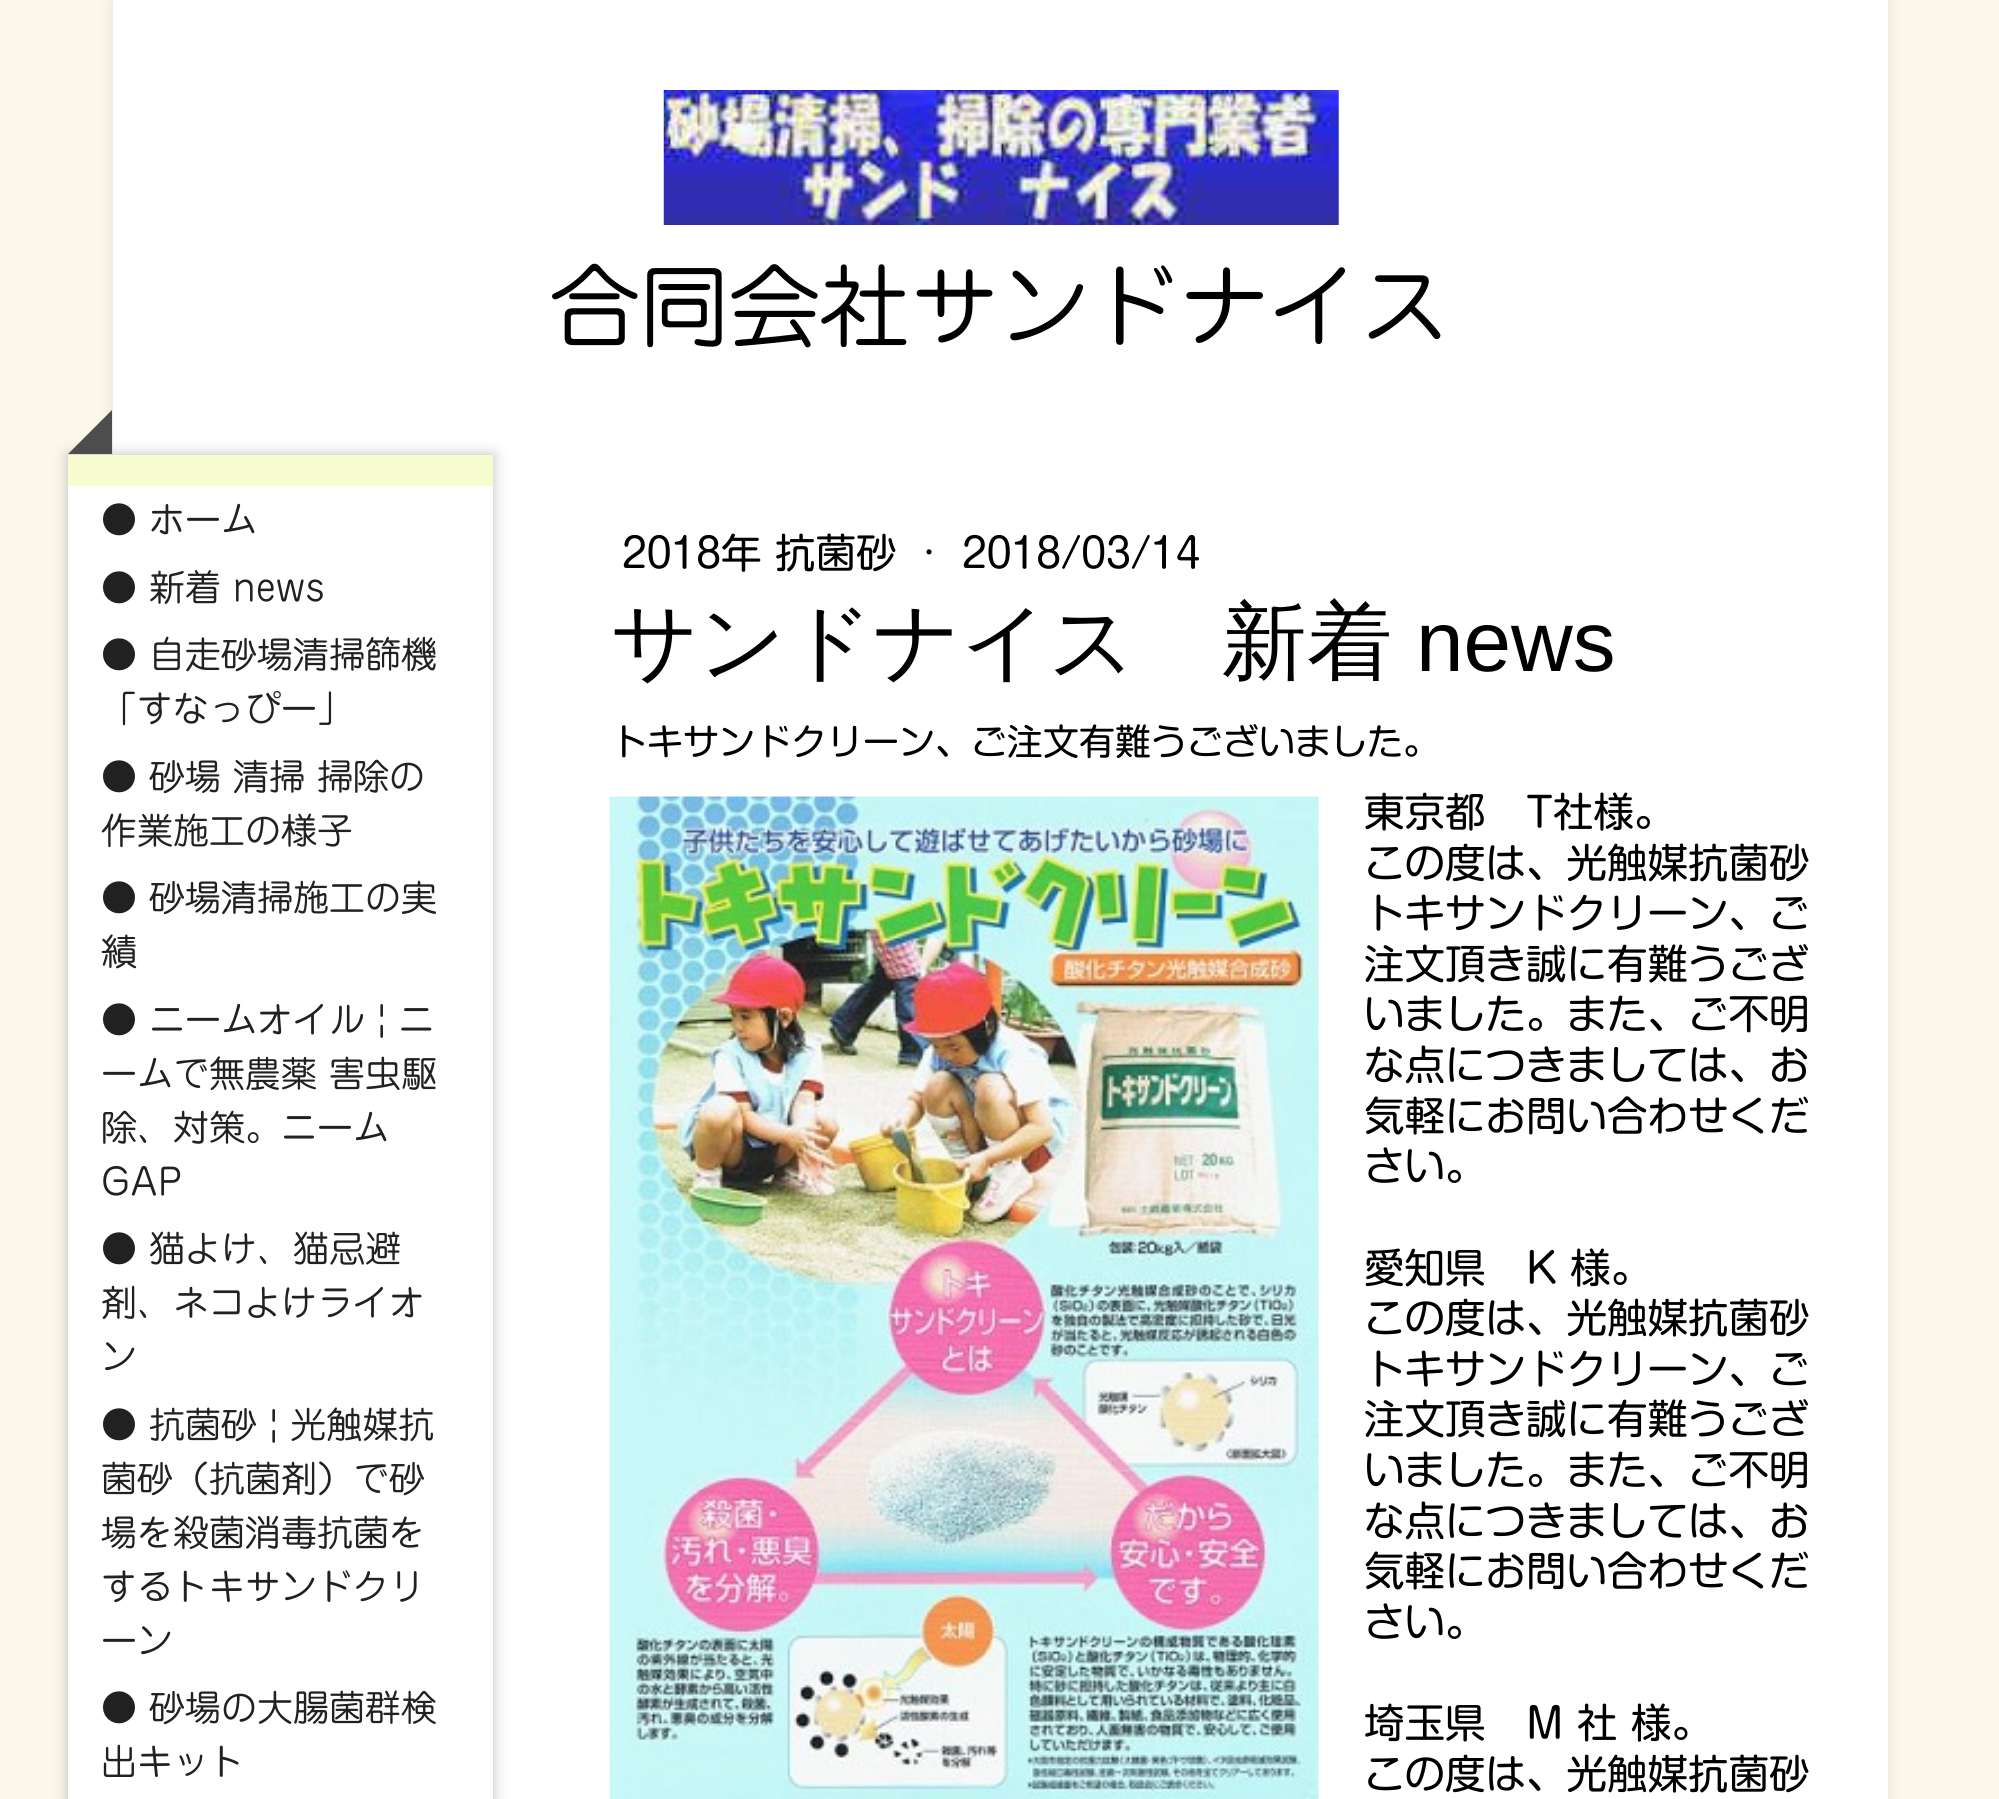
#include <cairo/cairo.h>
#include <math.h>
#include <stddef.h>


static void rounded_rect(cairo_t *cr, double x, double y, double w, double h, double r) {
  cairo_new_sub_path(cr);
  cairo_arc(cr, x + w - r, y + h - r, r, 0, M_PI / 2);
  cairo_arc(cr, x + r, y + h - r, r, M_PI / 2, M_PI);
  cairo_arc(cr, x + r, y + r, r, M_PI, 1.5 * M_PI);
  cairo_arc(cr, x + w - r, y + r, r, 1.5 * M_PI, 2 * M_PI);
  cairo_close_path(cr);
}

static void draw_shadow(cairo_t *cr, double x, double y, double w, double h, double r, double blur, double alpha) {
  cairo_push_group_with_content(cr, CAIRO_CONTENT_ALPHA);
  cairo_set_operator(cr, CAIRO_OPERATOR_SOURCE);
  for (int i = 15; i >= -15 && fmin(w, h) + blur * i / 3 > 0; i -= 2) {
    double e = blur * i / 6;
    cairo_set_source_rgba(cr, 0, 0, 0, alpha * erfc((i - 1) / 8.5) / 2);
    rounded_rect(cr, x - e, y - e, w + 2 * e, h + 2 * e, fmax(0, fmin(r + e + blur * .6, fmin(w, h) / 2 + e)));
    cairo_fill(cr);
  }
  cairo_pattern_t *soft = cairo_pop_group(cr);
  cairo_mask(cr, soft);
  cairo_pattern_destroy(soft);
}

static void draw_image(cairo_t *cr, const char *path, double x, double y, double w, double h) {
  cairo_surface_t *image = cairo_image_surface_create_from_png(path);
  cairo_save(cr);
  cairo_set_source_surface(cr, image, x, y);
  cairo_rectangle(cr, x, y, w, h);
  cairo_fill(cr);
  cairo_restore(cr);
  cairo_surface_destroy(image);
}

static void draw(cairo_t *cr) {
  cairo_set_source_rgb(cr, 252 / 255.0, 247 / 255.0, 235 / 255.0);
  cairo_paint(cr);
  cairo_set_source_rgb(cr, 0, 0, 0);
  draw_shadow(cr, 113, 0, 1775, 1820, 0, 7, 0.1);
  cairo_set_source_rgb(cr, 1, 1, 1);
  cairo_rectangle(cr, 113, 0, 1775, 1799);
  cairo_fill(cr);
  draw_image(cr, "images/1.png", 663, 90, 676, 135);
  cairo_set_source_rgb(cr, 191 / 255.0, 191 / 255.0, 191 / 255.0);
  draw_shadow(cr, 68, 455, 425, 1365, 0, 7, 1);
  cairo_set_source_rgb(cr, 246 / 255.0, 252 / 255.0, 207 / 255.0);
  cairo_rectangle(cr, 68, 455, 425, 31);
  cairo_fill(cr);
  cairo_set_source_rgb(cr, 77 / 255.0, 77 / 255.0, 77 / 255.0);
  cairo_new_path(cr);
  cairo_move_to(cr, 112, 454);
  cairo_line_to(cr, 68, 454);
  cairo_line_to(cr, 112, 410);
  cairo_close_path(cr);
  cairo_fill(cr);
  cairo_set_source_rgb(cr, 1, 1, 1);
  cairo_rectangle(cr, 68, 486, 425, 1313);
  cairo_fill(cr);
  draw_image(cr, "images/2.png", 609, 796, 710, 1003);
  cairo_select_font_face(cr, "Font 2", CAIRO_FONT_SLANT_NORMAL, CAIRO_FONT_WEIGHT_NORMAL);
  cairo_set_font_size(cr, 90);
  cairo_set_source_rgb(cr, 0, 0, 0);
  cairo_move_to(cr, 550, 340);
  cairo_show_text(cr, "合同会社サンドナイス");
  cairo_set_font_size(cr, 36);
  cairo_set_source_rgb(cr, 33 / 255.0, 33 / 255.0, 33 / 255.0);
  cairo_move_to(cr, 101, 533);
  cairo_show_text(cr, "● ホーム");
  cairo_move_to(cr, 101, 601);
  cairo_show_text(cr, "● 新着 news");
  cairo_move_to(cr, 101, 668);
  cairo_show_text(cr, "● 自走砂場清掃篩機");
  cairo_move_to(cr, 101, 722);
  cairo_show_text(cr, "「すなっぴー」");
  cairo_move_to(cr, 101, 790);
  cairo_show_text(cr, "● 砂場 清掃 掃除の");
  cairo_move_to(cr, 101, 844);
  cairo_show_text(cr, "作業施工の様子");
  cairo_move_to(cr, 101, 911);
  cairo_show_text(cr, "● 砂場清掃施工の実");
  cairo_move_to(cr, 101, 965);
  cairo_show_text(cr, "績");
  cairo_move_to(cr, 101, 1033);
  cairo_show_text(cr, "● ニームオイル | ニ");
  cairo_move_to(cr, 101, 1087);
  cairo_show_text(cr, "ームで無農薬 害虫駆");
  cairo_move_to(cr, 101, 1141);
  cairo_show_text(cr, "除、対策。ニーム");
  cairo_move_to(cr, 101, 1195);
  cairo_show_text(cr, "GAP");
  cairo_move_to(cr, 101, 1262);
  cairo_show_text(cr, "● 猫よけ、猫忌避");
  cairo_move_to(cr, 101, 1316);
  cairo_show_text(cr, "剤、ネコよけライオ");
  cairo_move_to(cr, 101, 1370);
  cairo_show_text(cr, "ン");
  cairo_move_to(cr, 101, 1438);
  cairo_show_text(cr, "● 抗菌砂 | 光触媒抗");
  cairo_move_to(cr, 101, 1492);
  cairo_show_text(cr, "菌砂（抗菌剤）で砂");
  cairo_move_to(cr, 101, 1546);
  cairo_show_text(cr, "場を殺菌消毒抗菌を");
  cairo_move_to(cr, 101, 1600);
  cairo_show_text(cr, "するトキサンドクリ");
  cairo_move_to(cr, 101, 1654);
  cairo_show_text(cr, "ーン");
  cairo_move_to(cr, 101, 1721);
  cairo_show_text(cr, "● 砂場の大腸菌群検");
  cairo_move_to(cr, 101, 1775);
  cairo_show_text(cr, "出キット");
  cairo_select_font_face(cr, "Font", CAIRO_FONT_SLANT_NORMAL, CAIRO_FONT_WEIGHT_NORMAL);
  cairo_set_font_size(cr, 40.5);
  cairo_set_source_rgb(cr, 0, 0, 0);
  cairo_move_to(cr, 622, 568);
  cairo_show_text(cr, "2018年 抗菌砂");
  cairo_move_to(cr, 923, 568);
  cairo_show_text(cr, "·");
  cairo_move_to(cr, 962, 568);
  cairo_show_text(cr, "2018/03/14");
  cairo_select_font_face(cr, "WenQuanYi Zen Hei Medium", CAIRO_FONT_SLANT_NORMAL, CAIRO_FONT_WEIGHT_NORMAL);
  cairo_set_font_size(cr, 85.5);
  cairo_move_to(cr, 611, 671);
  cairo_show_text(cr, "サンドナイス　新着");
  cairo_select_font_face(cr, "Liberation Sans", CAIRO_FONT_SLANT_NORMAL, CAIRO_FONT_WEIGHT_NORMAL);
  cairo_move_to(cr, 1416, 671);
  cairo_show_text(cr, "news");
  cairo_select_font_face(cr, "Font", CAIRO_FONT_SLANT_NORMAL, CAIRO_FONT_WEIGHT_NORMAL);
  cairo_set_font_size(cr, 36);
  cairo_move_to(cr, 611, 755);
  cairo_show_text(cr, "トキサンドクリーン、ご注文有難うございました。");
  cairo_set_font_size(cr, 40.5);
  cairo_move_to(cr, 1364, 827);
  cairo_show_text(cr, "東京都　T社様。");
  cairo_move_to(cr, 1364, 878);
  cairo_show_text(cr, "この度は、光触媒抗菌砂");
  cairo_move_to(cr, 1364, 928);
  cairo_show_text(cr, "トキサンドクリーン、ご");
  cairo_move_to(cr, 1364, 979);
  cairo_show_text(cr, "注文頂き誠に有難うござ");
  cairo_move_to(cr, 1364, 1029);
  cairo_show_text(cr, "いました。また、ご不明");
  cairo_move_to(cr, 1364, 1080);
  cairo_show_text(cr, "な点につきましては、お");
  cairo_move_to(cr, 1364, 1131);
  cairo_show_text(cr, "気軽にお問い合わせくだ");
  cairo_move_to(cr, 1364, 1181);
  cairo_show_text(cr, "さい。");
  cairo_move_to(cr, 1364, 1283);
  cairo_show_text(cr, "愛知県　K 様。");
  cairo_move_to(cr, 1364, 1333);
  cairo_show_text(cr, "この度は、光触媒抗菌砂");
  cairo_move_to(cr, 1364, 1384);
  cairo_show_text(cr, "トキサンドクリーン、ご");
  cairo_move_to(cr, 1364, 1434);
  cairo_show_text(cr, "注文頂き誠に有難うござ");
  cairo_move_to(cr, 1364, 1485);
  cairo_show_text(cr, "いました。また、ご不明");
  cairo_move_to(cr, 1364, 1536);
  cairo_show_text(cr, "な点につきましては、お");
  cairo_move_to(cr, 1364, 1586);
  cairo_show_text(cr, "気軽にお問い合わせくだ");
  cairo_move_to(cr, 1364, 1637);
  cairo_show_text(cr, "さい。");
  cairo_move_to(cr, 1364, 1738);
  cairo_show_text(cr, "埼玉県　M 社 様。");
  cairo_move_to(cr, 1364, 1789);
  cairo_show_text(cr, "この度は、光触媒抗菌砂");
}

int main(void) {
  cairo_surface_t *surface = cairo_image_surface_create(CAIRO_FORMAT_RGB24, 1999, 1799);
  cairo_t *cr = cairo_create(surface);
  cairo_font_options_t *options = cairo_font_options_create();
  cairo_font_options_set_hint_metrics(options, CAIRO_HINT_METRICS_OFF);
  cairo_font_options_set_hint_style(options, CAIRO_HINT_STYLE_NONE);
  cairo_set_font_options(cr, options);
  cairo_set_miter_limit(cr, 4);
  draw(cr);
  cairo_surface_write_to_png(surface, "out.png");
  cairo_font_options_destroy(options);
  cairo_destroy(cr);
  cairo_surface_destroy(surface);
  return 0;
}
